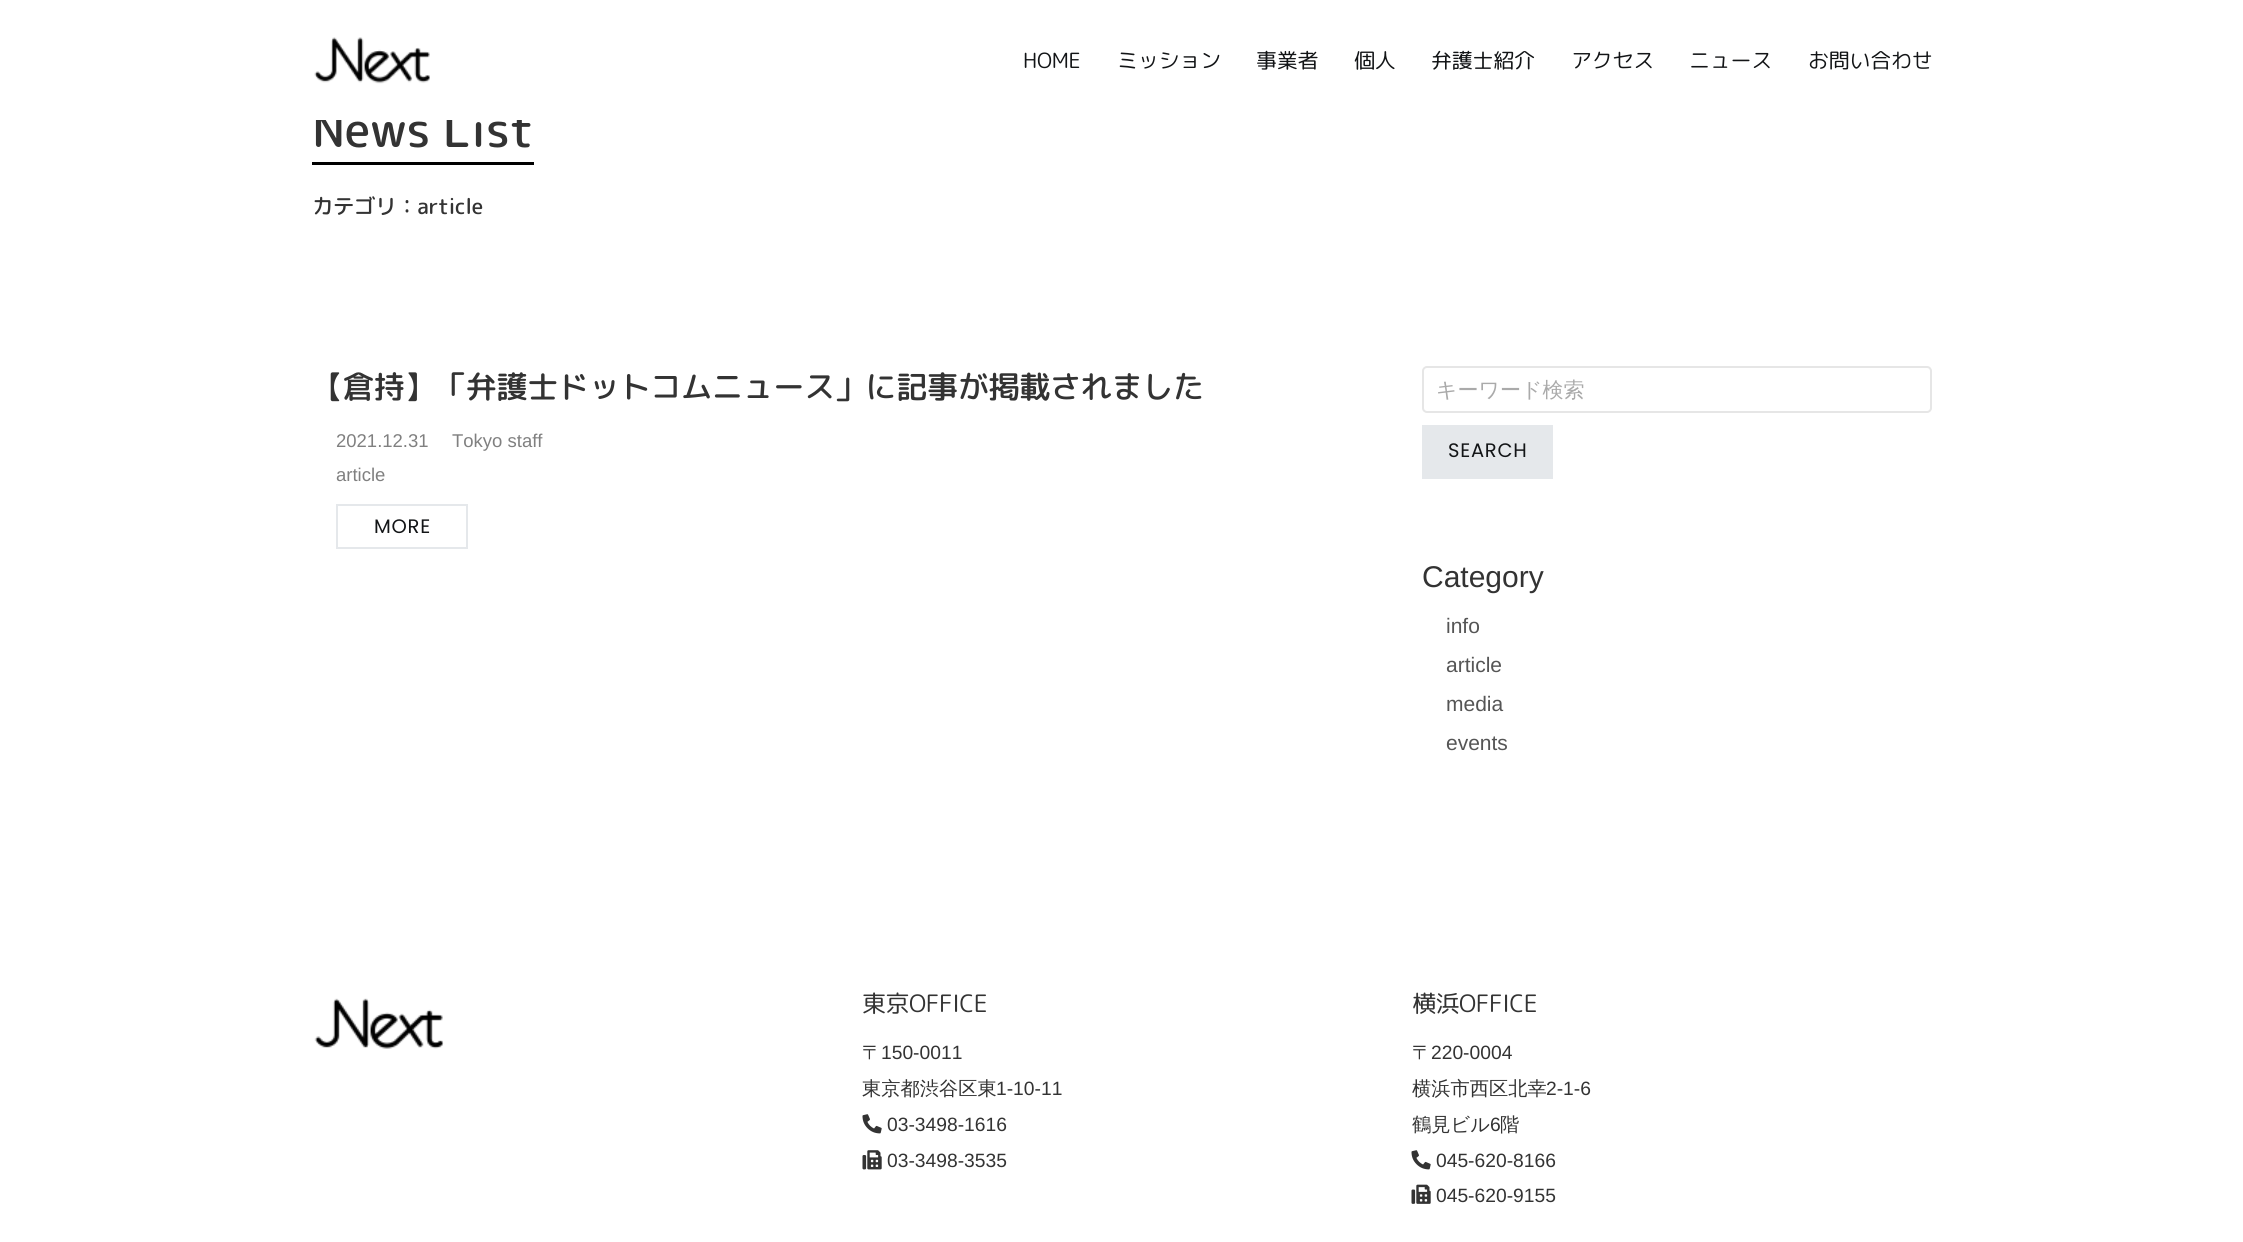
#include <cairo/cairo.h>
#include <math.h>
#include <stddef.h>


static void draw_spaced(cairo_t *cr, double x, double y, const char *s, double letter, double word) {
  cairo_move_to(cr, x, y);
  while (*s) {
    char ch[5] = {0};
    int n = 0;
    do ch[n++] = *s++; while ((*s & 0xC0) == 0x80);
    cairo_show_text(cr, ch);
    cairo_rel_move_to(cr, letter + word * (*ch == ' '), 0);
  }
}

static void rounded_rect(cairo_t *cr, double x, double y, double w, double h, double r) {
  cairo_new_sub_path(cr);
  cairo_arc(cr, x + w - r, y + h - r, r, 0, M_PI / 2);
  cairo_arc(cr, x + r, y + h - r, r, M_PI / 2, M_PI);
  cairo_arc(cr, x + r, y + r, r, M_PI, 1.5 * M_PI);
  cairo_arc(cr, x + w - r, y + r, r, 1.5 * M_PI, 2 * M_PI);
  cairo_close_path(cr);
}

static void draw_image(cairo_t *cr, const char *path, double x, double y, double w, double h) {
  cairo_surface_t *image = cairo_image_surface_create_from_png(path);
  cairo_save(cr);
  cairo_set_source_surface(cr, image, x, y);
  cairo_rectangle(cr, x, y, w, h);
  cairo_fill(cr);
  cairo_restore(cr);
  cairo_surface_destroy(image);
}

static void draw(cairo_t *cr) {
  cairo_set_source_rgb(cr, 1, 1, 1);
  cairo_paint(cr);
  draw_image(cr, "images/1.png", 314, 37, 116, 47);
  cairo_set_source_rgb(cr, 0, 0, 0);
  cairo_rectangle(cr, 312, 162, 222, 3);
  cairo_fill(cr);
  cairo_rectangle(cr, 337, 505, 130, 43);
  cairo_set_source_rgb(cr, 229 / 255.0, 232 / 255.0, 235 / 255.0);
  cairo_stroke(cr);
  rounded_rect(cr, 1423, 367, 508, 45, 4);
  cairo_set_source_rgb(cr, 230 / 255.0, 230 / 255.0, 230 / 255.0);
  cairo_stroke(cr);
  cairo_set_source_rgb(cr, 229 / 255.0, 232 / 255.0, 235 / 255.0);
  cairo_rectangle(cr, 1422, 425, 131, 54);
  cairo_fill(cr);
  draw_image(cr, "images/2.png", 314, 998, 130, 51);
  draw_image(cr, "images/3.png", 862, 1114, 20, 20);
  draw_image(cr, "images/4.png", 862, 1150, 20, 20);
  draw_image(cr, "images/3.png", 1411, 1150, 20, 20);
  draw_image(cr, "images/5.png", 1411, 1184, 20, 20);
  cairo_select_font_face(cr, "Rounded Mplus 1c", CAIRO_FONT_SLANT_NORMAL, CAIRO_FONT_WEIGHT_NORMAL);
  cairo_set_font_size(cr, 21);
  cairo_set_source_rgb(cr, 19 / 255.0, 21 / 255.0, 23 / 255.0);
  draw_spaced(cr, 1023, 68, "HOME", -0.25, 0);
  draw_spaced(cr, 1117, 68, "ミッション", -0.25, 0);
  draw_spaced(cr, 1256, 68, "事業者", -0.25, 0);
  draw_spaced(cr, 1354, 68, "個人", -0.25, 0);
  draw_spaced(cr, 1431, 68, "弁護士紹介", -0.25, 0);
  draw_spaced(cr, 1571, 68, "アクセス", -0.25, 0);
  draw_spaced(cr, 1689, 68, "ニュース", -0.25, 0);
  draw_spaced(cr, 1808, 68, "お問い合わせ", -0.25, 0);
  cairo_select_font_face(cr, "Rounded Mplus 1c Medium", CAIRO_FONT_SLANT_NORMAL, CAIRO_FONT_WEIGHT_NORMAL);
  cairo_set_font_size(cr, 48);
  cairo_set_source_rgb(cr, 51 / 255.0, 51 / 255.0, 51 / 255.0);
  draw_spaced(cr, 312, 147, "News List", -0.45, 0);
  cairo_set_source_rgb(cr, 1, 1, 1);
  cairo_rectangle(cr, 315, 111, 207, 9);
  cairo_fill(cr);
  cairo_set_font_size(cr, 21.5);
  cairo_set_source_rgb(cr, 51 / 255.0, 51 / 255.0, 51 / 255.0);
  draw_spaced(cr, 312, 214, "カテゴリ：article", -0.45, 0);
  cairo_set_font_size(cr, 31.2);
  draw_spaced(cr, 312, 398, "【倉持】「弁護士ドットコムニュース」に記事が掲載されました", -0.45, 0);
  cairo_select_font_face(cr, "Liberation Sans", CAIRO_FONT_SLANT_NORMAL, CAIRO_FONT_WEIGHT_NORMAL);
  cairo_set_font_size(cr, 18.5);
  cairo_set_source_rgb(cr, 128 / 255.0, 128 / 255.0, 128 / 255.0);
  cairo_move_to(cr, 336, 447);
  cairo_show_text(cr, "2021.12.31");
  cairo_move_to(cr, 452, 447);
  cairo_show_text(cr, "Tokyo staff");
  cairo_move_to(cr, 336, 481);
  cairo_show_text(cr, "article");
  cairo_select_font_face(cr, "Poppins", CAIRO_FONT_SLANT_NORMAL, CAIRO_FONT_WEIGHT_NORMAL);
  cairo_set_font_size(cr, 19.5);
  cairo_set_source_rgb(cr, 19 / 255.0, 21 / 255.0, 23 / 255.0);
  draw_spaced(cr, 374, 533, "MORE", 0.75, 0);
  cairo_select_font_face(cr, "WenQuanYi Zen Hei Medium", CAIRO_FONT_SLANT_NORMAL, CAIRO_FONT_WEIGHT_NORMAL);
  cairo_set_font_size(cr, 21);
  cairo_set_source_rgb(cr, 170 / 255.0, 170 / 255.0, 170 / 255.0);
  cairo_move_to(cr, 1436, 397);
  cairo_show_text(cr, "キーワード検索");
  cairo_select_font_face(cr, "Poppins", CAIRO_FONT_SLANT_NORMAL, CAIRO_FONT_WEIGHT_NORMAL);
  cairo_set_font_size(cr, 19.5);
  cairo_set_source_rgb(cr, 19 / 255.0, 21 / 255.0, 23 / 255.0);
  draw_spaced(cr, 1448, 457, "SEARCH", 0.75, 0);
  cairo_select_font_face(cr, "Liberation Sans", CAIRO_FONT_SLANT_NORMAL, CAIRO_FONT_WEIGHT_NORMAL);
  cairo_set_font_size(cr, 30);
  cairo_set_source_rgb(cr, 51 / 255.0, 51 / 255.0, 51 / 255.0);
  cairo_move_to(cr, 1422, 587);
  cairo_show_text(cr, "Category");
  cairo_set_font_size(cr, 21);
  cairo_set_source_rgb(cr, 85 / 255.0, 85 / 255.0, 85 / 255.0);
  cairo_move_to(cr, 1446, 633);
  cairo_show_text(cr, "info");
  cairo_move_to(cr, 1446, 672);
  cairo_show_text(cr, "article");
  cairo_move_to(cr, 1446, 711);
  cairo_show_text(cr, "media");
  cairo_move_to(cr, 1446, 750);
  cairo_show_text(cr, "events");
  cairo_select_font_face(cr, "Rounded Mplus 1c", CAIRO_FONT_SLANT_NORMAL, CAIRO_FONT_WEIGHT_NORMAL);
  cairo_set_font_size(cr, 24);
  cairo_set_source_rgb(cr, 51 / 255.0, 51 / 255.0, 51 / 255.0);
  draw_spaced(cr, 862, 1012, "東京OFFICE", -0.45, 0);
  cairo_select_font_face(cr, "WenQuanYi Zen Hei Medium", CAIRO_FONT_SLANT_NORMAL, CAIRO_FONT_WEIGHT_NORMAL);
  cairo_set_font_size(cr, 19.25);
  cairo_move_to(cr, 862, 1059);
  cairo_show_text(cr, "〒");
  cairo_select_font_face(cr, "Liberation Sans", CAIRO_FONT_SLANT_NORMAL, CAIRO_FONT_WEIGHT_NORMAL);
  cairo_move_to(cr, 881, 1059);
  cairo_show_text(cr, "150-0011");
  cairo_select_font_face(cr, "WenQuanYi Zen Hei Medium", CAIRO_FONT_SLANT_NORMAL, CAIRO_FONT_WEIGHT_NORMAL);
  cairo_move_to(cr, 862, 1095);
  cairo_show_text(cr, "東京都渋谷区東");
  cairo_select_font_face(cr, "Liberation Sans", CAIRO_FONT_SLANT_NORMAL, CAIRO_FONT_WEIGHT_NORMAL);
  cairo_move_to(cr, 996, 1095);
  cairo_show_text(cr, "1-10-11");
  cairo_move_to(cr, 887, 1131);
  cairo_show_text(cr, "03-3498-1616");
  cairo_move_to(cr, 887, 1167);
  cairo_show_text(cr, "03-3498-3535");
  cairo_select_font_face(cr, "Rounded Mplus 1c", CAIRO_FONT_SLANT_NORMAL, CAIRO_FONT_WEIGHT_NORMAL);
  cairo_set_font_size(cr, 24);
  draw_spaced(cr, 1412, 1012, "横浜OFFICE", -0.45, 0);
  cairo_select_font_face(cr, "WenQuanYi Zen Hei Medium", CAIRO_FONT_SLANT_NORMAL, CAIRO_FONT_WEIGHT_NORMAL);
  cairo_set_font_size(cr, 19.25);
  cairo_move_to(cr, 1412, 1059);
  cairo_show_text(cr, "〒");
  cairo_select_font_face(cr, "Liberation Sans", CAIRO_FONT_SLANT_NORMAL, CAIRO_FONT_WEIGHT_NORMAL);
  cairo_move_to(cr, 1431, 1059);
  cairo_show_text(cr, "220-0004");
  cairo_select_font_face(cr, "WenQuanYi Zen Hei Medium", CAIRO_FONT_SLANT_NORMAL, CAIRO_FONT_WEIGHT_NORMAL);
  cairo_move_to(cr, 1412, 1095);
  cairo_show_text(cr, "横浜市西区北幸");
  cairo_select_font_face(cr, "Liberation Sans", CAIRO_FONT_SLANT_NORMAL, CAIRO_FONT_WEIGHT_NORMAL);
  cairo_move_to(cr, 1546, 1095);
  cairo_show_text(cr, "2-1-6");
  cairo_select_font_face(cr, "WenQuanYi Zen Hei Medium", CAIRO_FONT_SLANT_NORMAL, CAIRO_FONT_WEIGHT_NORMAL);
  cairo_move_to(cr, 1412, 1131);
  cairo_show_text(cr, "鶴見ビル");
  cairo_select_font_face(cr, "Liberation Sans", CAIRO_FONT_SLANT_NORMAL, CAIRO_FONT_WEIGHT_NORMAL);
  cairo_move_to(cr, 1490, 1131);
  cairo_show_text(cr, "6");
  cairo_select_font_face(cr, "WenQuanYi Zen Hei Medium", CAIRO_FONT_SLANT_NORMAL, CAIRO_FONT_WEIGHT_NORMAL);
  cairo_move_to(cr, 1500, 1131);
  cairo_show_text(cr, "階");
  cairo_select_font_face(cr, "Liberation Sans", CAIRO_FONT_SLANT_NORMAL, CAIRO_FONT_WEIGHT_NORMAL);
  cairo_move_to(cr, 1436, 1167);
  cairo_show_text(cr, "045-620-8166");
  cairo_move_to(cr, 1436, 1202);
  cairo_show_text(cr, "045-620-9155");
}

int main(void) {
  cairo_surface_t *surface = cairo_image_surface_create(CAIRO_FORMAT_RGB24, 2243, 1242);
  cairo_t *cr = cairo_create(surface);
  cairo_font_options_t *options = cairo_font_options_create();
  cairo_font_options_set_hint_metrics(options, CAIRO_HINT_METRICS_OFF);
  cairo_font_options_set_hint_style(options, CAIRO_HINT_STYLE_NONE);
  cairo_set_font_options(cr, options);
  cairo_set_miter_limit(cr, 4);
  draw(cr);
  cairo_surface_write_to_png(surface, "out.png");
  cairo_font_options_destroy(options);
  cairo_destroy(cr);
  cairo_surface_destroy(surface);
  return 0;
}
